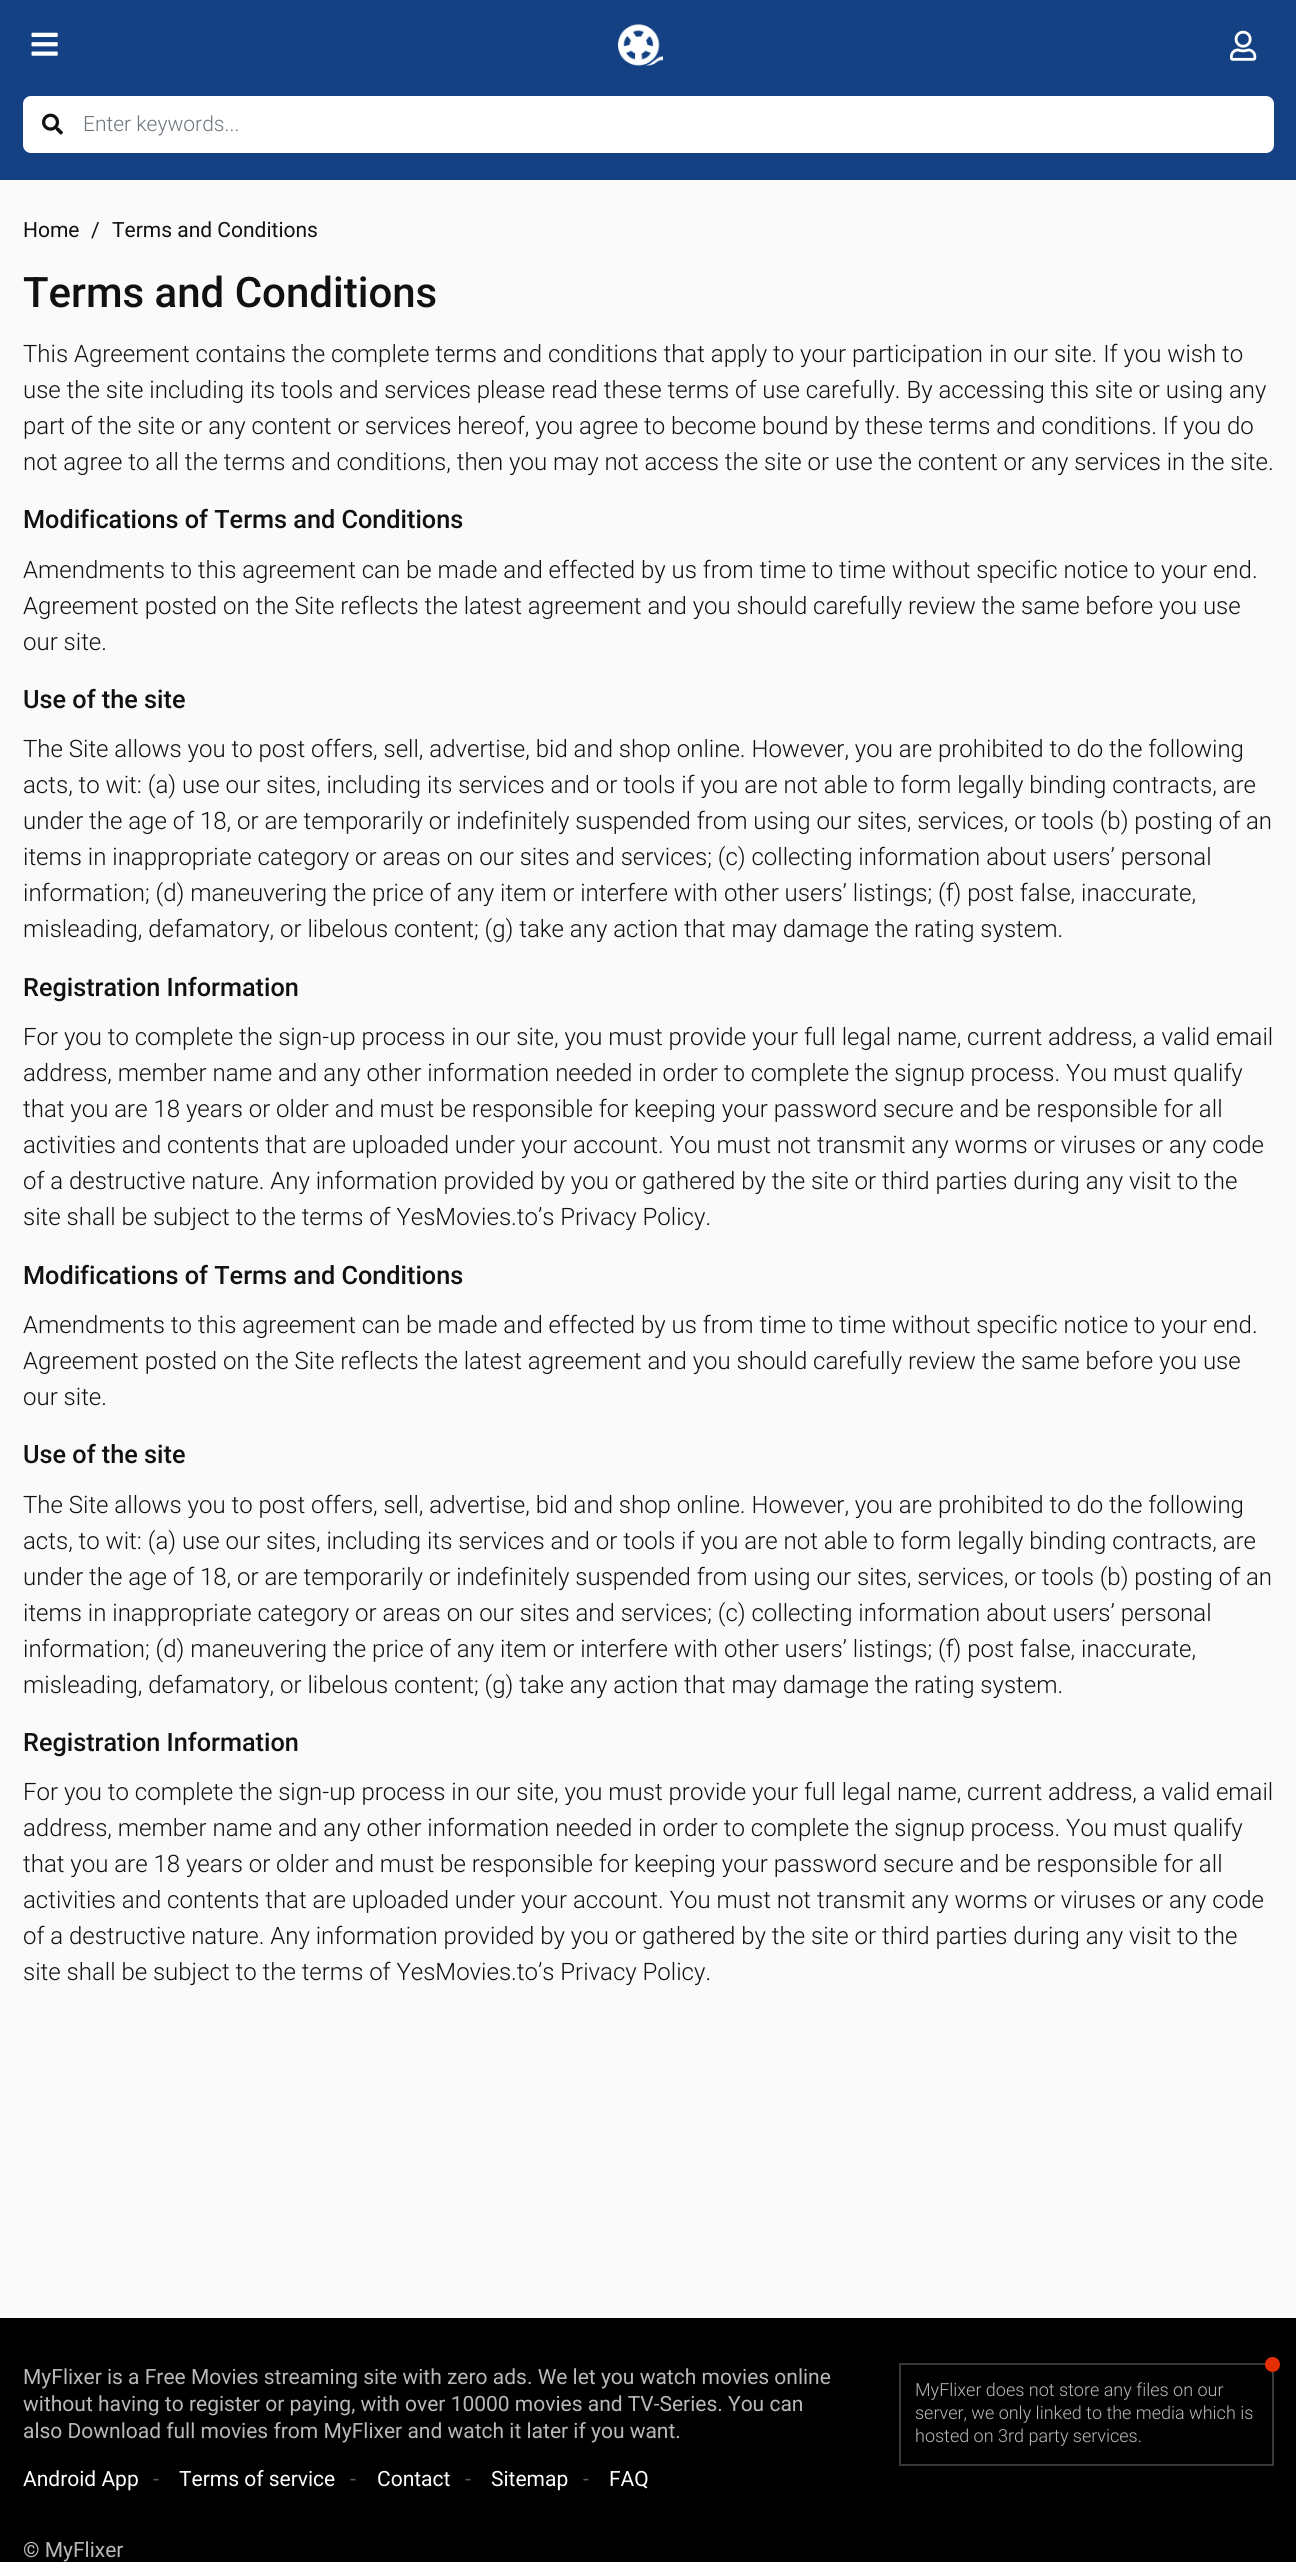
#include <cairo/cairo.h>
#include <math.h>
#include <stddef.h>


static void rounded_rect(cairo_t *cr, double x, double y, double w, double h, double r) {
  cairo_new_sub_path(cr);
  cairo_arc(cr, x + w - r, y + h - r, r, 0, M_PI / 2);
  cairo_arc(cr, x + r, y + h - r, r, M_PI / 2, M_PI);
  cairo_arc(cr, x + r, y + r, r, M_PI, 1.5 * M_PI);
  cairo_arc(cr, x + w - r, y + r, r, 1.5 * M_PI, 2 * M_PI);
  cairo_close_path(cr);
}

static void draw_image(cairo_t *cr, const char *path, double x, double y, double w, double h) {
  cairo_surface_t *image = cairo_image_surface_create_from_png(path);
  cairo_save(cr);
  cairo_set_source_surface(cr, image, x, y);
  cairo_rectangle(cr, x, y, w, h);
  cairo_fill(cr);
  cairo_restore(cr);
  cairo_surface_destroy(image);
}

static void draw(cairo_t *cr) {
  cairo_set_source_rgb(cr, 250 / 255.0, 250 / 255.0, 250 / 255.0);
  cairo_paint(cr);
  cairo_set_source_rgb(cr, 20 / 255.0, 65 / 255.0, 132 / 255.0);
  cairo_rectangle(cr, 0, 0, 1296, 180);
  cairo_fill(cr);
  draw_image(cr, "images/1.png", 31, 32, 27, 24);
  draw_image(cr, "images/2.png", 618, 24, 45, 42);
  draw_image(cr, "images/3.png", 1230, 30, 27, 31);
  cairo_set_source_rgb(cr, 1, 1, 1);
  rounded_rect(cr, 23, 96, 1251, 57, 8);
  cairo_fill(cr);
  draw_image(cr, "images/4.png", 42, 113, 21, 22);
  cairo_set_source_rgb(cr, 0, 0, 0);
  cairo_rectangle(cr, 0, 2318, 1296, 244);
  cairo_fill(cr);
  cairo_rectangle(cr, 900, 2364, 373, 101);
  cairo_set_source_rgb(cr, 57 / 255.0, 57 / 255.0, 57 / 255.0);
  cairo_stroke(cr);
  cairo_set_source_rgb(cr, 230 / 255.0, 46 / 255.0, 5 / 255.0);
  cairo_arc(cr, 1272.5, 2364.5, 7.5, 0, 2 * M_PI);
  cairo_fill(cr);
  cairo_select_font_face(cr, "Roboto Light", CAIRO_FONT_SLANT_NORMAL, CAIRO_FONT_WEIGHT_NORMAL);
  cairo_set_font_size(cr, 21);
  cairo_set_source_rgb(cr, 108 / 255.0, 117 / 255.0, 125 / 255.0);
  cairo_move_to(cr, 83, 131);
  cairo_show_text(cr, "Enter keywords...");
  cairo_select_font_face(cr, "Roboto", CAIRO_FONT_SLANT_NORMAL, CAIRO_FONT_WEIGHT_NORMAL);
  cairo_set_source_rgb(cr, 17 / 255.0, 17 / 255.0, 17 / 255.0);
  cairo_move_to(cr, 23, 237);
  cairo_show_text(cr, "Home");
  cairo_move_to(cr, 91, 237);
  cairo_show_text(cr, "/");
  cairo_move_to(cr, 112, 237);
  cairo_show_text(cr, "Terms and Conditions");
  cairo_select_font_face(cr, "Roboto Medium", CAIRO_FONT_SLANT_NORMAL, CAIRO_FONT_WEIGHT_NORMAL);
  cairo_set_font_size(cr, 42);
  cairo_move_to(cr, 23, 307);
  cairo_show_text(cr, "Terms and Conditions");
  cairo_select_font_face(cr, "Roboto Light", CAIRO_FONT_SLANT_NORMAL, CAIRO_FONT_WEIGHT_NORMAL);
  cairo_set_font_size(cr, 24);
  cairo_move_to(cr, 23, 362);
  cairo_show_text(cr, "This Agreement contains the complete terms and conditions that apply to your participation in our site. If you wish to");
  cairo_move_to(cr, 23, 398);
  cairo_show_text(cr, "use the site including its tools and services please read these terms of use carefully. By accessing this site or using any");
  cairo_move_to(cr, 23, 434);
  cairo_show_text(cr, "part of the site or any content or services hereof, you agree to become bound by these terms and conditions. If you do");
  cairo_move_to(cr, 23, 470);
  cairo_show_text(cr, "not agree to all the terms and conditions, then you may not access the site or use the content or any services in the site.");
  cairo_select_font_face(cr, "Roboto Medium", CAIRO_FONT_SLANT_NORMAL, CAIRO_FONT_WEIGHT_NORMAL);
  cairo_set_font_size(cr, 25.25);
  cairo_move_to(cr, 23, 528);
  cairo_show_text(cr, "Modifications of Terms and Conditions");
  cairo_select_font_face(cr, "Roboto Light", CAIRO_FONT_SLANT_NORMAL, CAIRO_FONT_WEIGHT_NORMAL);
  cairo_set_font_size(cr, 24);
  cairo_move_to(cr, 23, 578);
  cairo_show_text(cr, "Amendments to this agreement can be made and effected by us from time to time without specific notice to your end.");
  cairo_move_to(cr, 23, 614);
  cairo_show_text(cr, "Agreement posted on the Site reflects the latest agreement and you should carefully review the same before you use");
  cairo_move_to(cr, 23, 650);
  cairo_show_text(cr, "our site.");
  cairo_select_font_face(cr, "Roboto Medium", CAIRO_FONT_SLANT_NORMAL, CAIRO_FONT_WEIGHT_NORMAL);
  cairo_set_font_size(cr, 25.25);
  cairo_move_to(cr, 23, 708);
  cairo_show_text(cr, "Use of the site");
  cairo_select_font_face(cr, "Roboto Light", CAIRO_FONT_SLANT_NORMAL, CAIRO_FONT_WEIGHT_NORMAL);
  cairo_set_font_size(cr, 24);
  cairo_move_to(cr, 23, 757);
  cairo_show_text(cr, "The Site allows you to post offers, sell, advertise, bid and shop online. However, you are prohibited to do the following");
  cairo_move_to(cr, 23, 793);
  cairo_show_text(cr, "acts, to wit: (a) use our sites, including its services and or tools if you are not able to form legally binding contracts, are");
  cairo_move_to(cr, 23, 829);
  cairo_show_text(cr, "under the age of 18, or are temporarily or indefinitely suspended from using our sites, services, or tools (b) posting of an");
  cairo_move_to(cr, 23, 865);
  cairo_show_text(cr, "items in inappropriate category or areas on our sites and services; (c) collecting information about users’ personal");
  cairo_move_to(cr, 23, 901);
  cairo_show_text(cr, "information; (d) maneuvering the price of any item or interfere with other users’ listings; (f) post false, inaccurate,");
  cairo_move_to(cr, 23, 937);
  cairo_show_text(cr, "misleading, defamatory, or libelous content; (g) take any action that may damage the rating system.");
  cairo_select_font_face(cr, "Roboto Medium", CAIRO_FONT_SLANT_NORMAL, CAIRO_FONT_WEIGHT_NORMAL);
  cairo_set_font_size(cr, 25.25);
  cairo_move_to(cr, 23, 996);
  cairo_show_text(cr, "Registration Information");
  cairo_select_font_face(cr, "Roboto Light", CAIRO_FONT_SLANT_NORMAL, CAIRO_FONT_WEIGHT_NORMAL);
  cairo_set_font_size(cr, 24);
  cairo_move_to(cr, 23, 1045);
  cairo_show_text(cr, "For you to complete the sign-up process in our site, you must provide your full legal name, current address, a valid email");
  cairo_move_to(cr, 23, 1081);
  cairo_show_text(cr, "address, member name and any other information needed in order to complete the signup process. You must qualify");
  cairo_move_to(cr, 23, 1117);
  cairo_show_text(cr, "that you are 18 years or older and must be responsible for keeping your password secure and be responsible for all");
  cairo_move_to(cr, 23, 1153);
  cairo_show_text(cr, "activities and contents that are uploaded under your account. You must not transmit any worms or viruses or any code");
  cairo_move_to(cr, 23, 1189);
  cairo_show_text(cr, "of a destructive nature. Any information provided by you or gathered by the site or third parties during any visit to the");
  cairo_move_to(cr, 23, 1225);
  cairo_show_text(cr, "site shall be subject to the terms of YesMovies.to’s Privacy Policy.");
  cairo_select_font_face(cr, "Roboto Medium", CAIRO_FONT_SLANT_NORMAL, CAIRO_FONT_WEIGHT_NORMAL);
  cairo_set_font_size(cr, 25.25);
  cairo_move_to(cr, 23, 1284);
  cairo_show_text(cr, "Modifications of Terms and Conditions");
  cairo_select_font_face(cr, "Roboto Light", CAIRO_FONT_SLANT_NORMAL, CAIRO_FONT_WEIGHT_NORMAL);
  cairo_set_font_size(cr, 24);
  cairo_move_to(cr, 23, 1333);
  cairo_show_text(cr, "Amendments to this agreement can be made and effected by us from time to time without specific notice to your end.");
  cairo_move_to(cr, 23, 1369);
  cairo_show_text(cr, "Agreement posted on the Site reflects the latest agreement and you should carefully review the same before you use");
  cairo_move_to(cr, 23, 1405);
  cairo_show_text(cr, "our site.");
  cairo_select_font_face(cr, "Roboto Medium", CAIRO_FONT_SLANT_NORMAL, CAIRO_FONT_WEIGHT_NORMAL);
  cairo_set_font_size(cr, 25.25);
  cairo_move_to(cr, 23, 1463);
  cairo_show_text(cr, "Use of the site");
  cairo_select_font_face(cr, "Roboto Light", CAIRO_FONT_SLANT_NORMAL, CAIRO_FONT_WEIGHT_NORMAL);
  cairo_set_font_size(cr, 24);
  cairo_move_to(cr, 23, 1513);
  cairo_show_text(cr, "The Site allows you to post offers, sell, advertise, bid and shop online. However, you are prohibited to do the following");
  cairo_move_to(cr, 23, 1549);
  cairo_show_text(cr, "acts, to wit: (a) use our sites, including its services and or tools if you are not able to form legally binding contracts, are");
  cairo_move_to(cr, 23, 1585);
  cairo_show_text(cr, "under the age of 18, or are temporarily or indefinitely suspended from using our sites, services, or tools (b) posting of an");
  cairo_move_to(cr, 23, 1621);
  cairo_show_text(cr, "items in inappropriate category or areas on our sites and services; (c) collecting information about users’ personal");
  cairo_move_to(cr, 23, 1657);
  cairo_show_text(cr, "information; (d) maneuvering the price of any item or interfere with other users’ listings; (f) post false, inaccurate,");
  cairo_move_to(cr, 23, 1693);
  cairo_show_text(cr, "misleading, defamatory, or libelous content; (g) take any action that may damage the rating system.");
  cairo_select_font_face(cr, "Roboto Medium", CAIRO_FONT_SLANT_NORMAL, CAIRO_FONT_WEIGHT_NORMAL);
  cairo_set_font_size(cr, 25.25);
  cairo_move_to(cr, 23, 1751);
  cairo_show_text(cr, "Registration Information");
  cairo_select_font_face(cr, "Roboto Light", CAIRO_FONT_SLANT_NORMAL, CAIRO_FONT_WEIGHT_NORMAL);
  cairo_set_font_size(cr, 24);
  cairo_move_to(cr, 23, 1800);
  cairo_show_text(cr, "For you to complete the sign-up process in our site, you must provide your full legal name, current address, a valid email");
  cairo_move_to(cr, 23, 1836);
  cairo_show_text(cr, "address, member name and any other information needed in order to complete the signup process. You must qualify");
  cairo_move_to(cr, 23, 1872);
  cairo_show_text(cr, "that you are 18 years or older and must be responsible for keeping your password secure and be responsible for all");
  cairo_move_to(cr, 23, 1908);
  cairo_show_text(cr, "activities and contents that are uploaded under your account. You must not transmit any worms or viruses or any code");
  cairo_move_to(cr, 23, 1944);
  cairo_show_text(cr, "of a destructive nature. Any information provided by you or gathered by the site or third parties during any visit to the");
  cairo_move_to(cr, 23, 1980);
  cairo_show_text(cr, "site shall be subject to the terms of YesMovies.to’s Privacy Policy.");
  cairo_select_font_face(cr, "Roboto", CAIRO_FONT_SLANT_NORMAL, CAIRO_FONT_WEIGHT_NORMAL);
  cairo_set_font_size(cr, 21);
  cairo_set_source_rgb(cr, 185 / 255.0, 185 / 255.0, 185 / 255.0);
  cairo_move_to(cr, 23, 2384);
  cairo_show_text(cr, "MyFlixer is a Free Movies streaming site with zero ads. We let you watch movies online");
  cairo_move_to(cr, 23, 2411);
  cairo_show_text(cr, "without having to register or paying, with over 10000 movies and TV-Series. You can");
  cairo_move_to(cr, 23, 2438);
  cairo_show_text(cr, "also Download full movies from MyFlixer and watch it later if you want.");
  cairo_set_source_rgb(cr, 1, 1, 1);
  cairo_move_to(cr, 23, 2486);
  cairo_show_text(cr, "Android App");
  cairo_set_source_rgb(cr, 93 / 255.0, 93 / 255.0, 93 / 255.0);
  cairo_move_to(cr, 153, 2486);
  cairo_show_text(cr, "-");
  cairo_set_source_rgb(cr, 1, 1, 1);
  cairo_move_to(cr, 179, 2486);
  cairo_show_text(cr, "Terms of service");
  cairo_set_source_rgb(cr, 93 / 255.0, 93 / 255.0, 93 / 255.0);
  cairo_move_to(cr, 350, 2486);
  cairo_show_text(cr, "-");
  cairo_set_source_rgb(cr, 1, 1, 1);
  cairo_move_to(cr, 377, 2486);
  cairo_show_text(cr, "Contact");
  cairo_set_source_rgb(cr, 93 / 255.0, 93 / 255.0, 93 / 255.0);
  cairo_move_to(cr, 465, 2486);
  cairo_show_text(cr, "-");
  cairo_set_source_rgb(cr, 1, 1, 1);
  cairo_move_to(cr, 491, 2486);
  cairo_show_text(cr, "Sitemap");
  cairo_set_source_rgb(cr, 93 / 255.0, 93 / 255.0, 93 / 255.0);
  cairo_move_to(cr, 583, 2486);
  cairo_show_text(cr, "-");
  cairo_set_source_rgb(cr, 1, 1, 1);
  cairo_move_to(cr, 609, 2486);
  cairo_show_text(cr, "FAQ");
  cairo_select_font_face(cr, "Roboto Light", CAIRO_FONT_SLANT_NORMAL, CAIRO_FONT_WEIGHT_NORMAL);
  cairo_set_font_size(cr, 18);
  cairo_set_source_rgb(cr, 185 / 255.0, 185 / 255.0, 185 / 255.0);
  cairo_move_to(cr, 915, 2396);
  cairo_show_text(cr, "MyFlixer does not store any files on our");
  cairo_move_to(cr, 915, 2419);
  cairo_show_text(cr, "server, we only linked to the media which is");
  cairo_move_to(cr, 915, 2442);
  cairo_show_text(cr, "hosted on 3rd party services.");
  cairo_select_font_face(cr, "Roboto", CAIRO_FONT_SLANT_NORMAL, CAIRO_FONT_WEIGHT_NORMAL);
  cairo_set_font_size(cr, 21);
  cairo_move_to(cr, 23, 2557);
  cairo_show_text(cr, "© MyFlixer");
}

int main(void) {
  cairo_surface_t *surface = cairo_image_surface_create(CAIRO_FORMAT_RGB24, 1296, 2562);
  cairo_t *cr = cairo_create(surface);
  cairo_font_options_t *options = cairo_font_options_create();
  cairo_font_options_set_hint_metrics(options, CAIRO_HINT_METRICS_OFF);
  cairo_font_options_set_hint_style(options, CAIRO_HINT_STYLE_NONE);
  cairo_set_font_options(cr, options);
  cairo_set_miter_limit(cr, 4);
  draw(cr);
  cairo_surface_write_to_png(surface, "out.png");
  cairo_font_options_destroy(options);
  cairo_destroy(cr);
  cairo_surface_destroy(surface);
  return 0;
}
